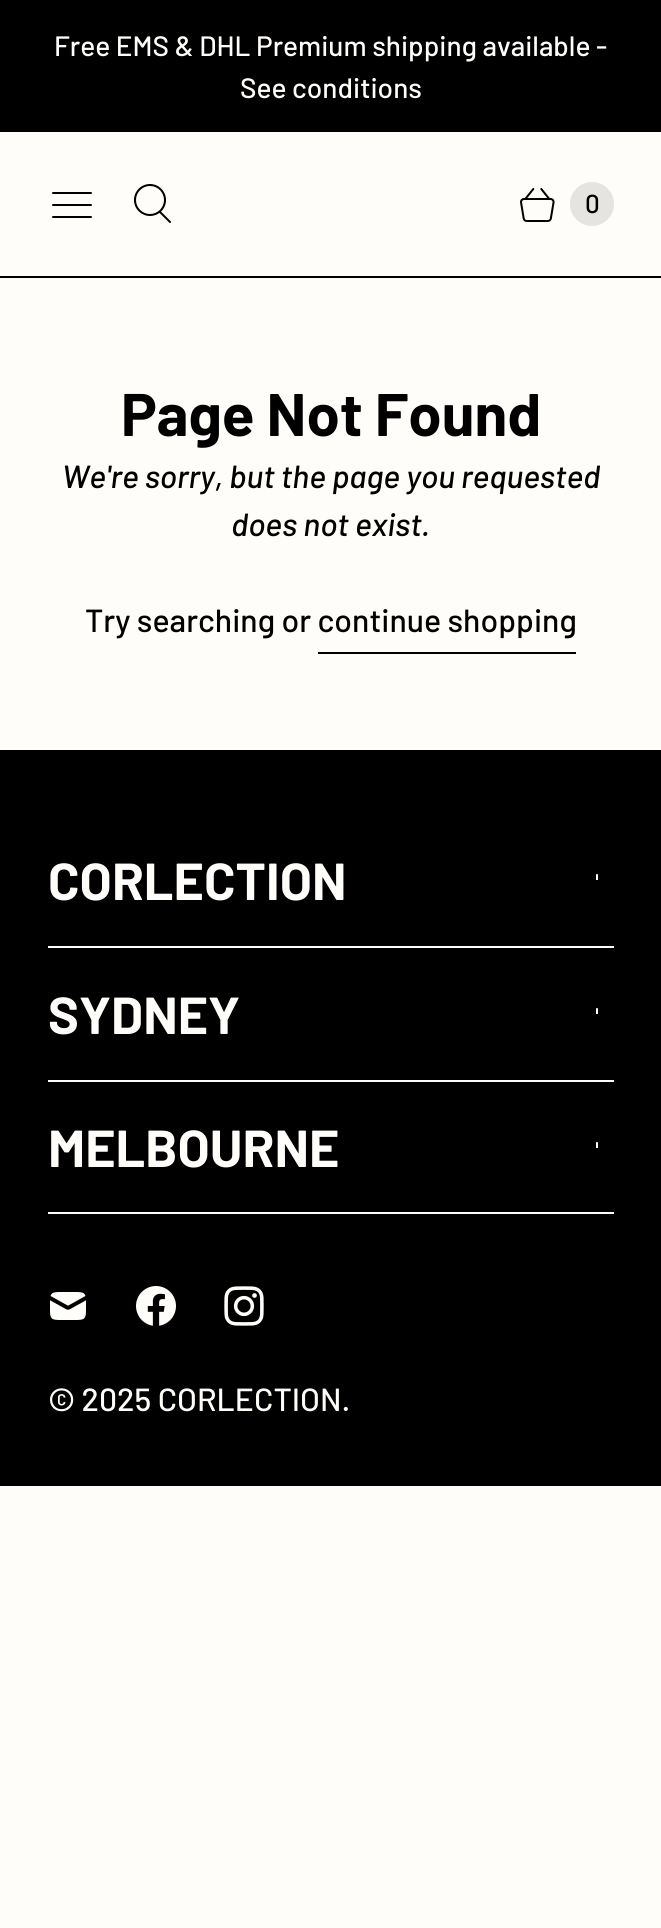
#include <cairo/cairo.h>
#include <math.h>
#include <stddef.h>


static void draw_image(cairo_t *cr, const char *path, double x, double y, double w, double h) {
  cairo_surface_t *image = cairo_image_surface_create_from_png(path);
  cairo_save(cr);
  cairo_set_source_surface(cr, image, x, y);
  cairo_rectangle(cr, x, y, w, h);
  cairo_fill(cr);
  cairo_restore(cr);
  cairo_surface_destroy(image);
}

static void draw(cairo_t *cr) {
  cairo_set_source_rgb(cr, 1, 253 / 255.0, 249 / 255.0);
  cairo_paint(cr);
  cairo_set_source_rgb(cr, 0, 0, 0);
  cairo_rectangle(cr, 0, 0, 661, 132);
  cairo_fill(cr);
  cairo_rectangle(cr, 0, 276, 661, 2);
  cairo_fill(cr);
  draw_image(cr, "images/1.png", 52, 192, 40, 26);
  draw_image(cr, "images/2.png", 134, 184, 37, 39);
  draw_image(cr, "images/3.png", 520, 188, 35, 34);
  cairo_set_source_rgb(cr, 230 / 255.0, 228 / 255.0, 224 / 255.0);
  cairo_arc(cr, 592, 204, 22, 0, 2 * M_PI);
  cairo_fill(cr);
  cairo_set_source_rgb(cr, 0, 0, 0);
  cairo_rectangle(cr, 318, 652, 258, 2);
  cairo_fill(cr);
  cairo_rectangle(cr, 0, 750, 661, 736);
  cairo_fill(cr);
  cairo_set_source_rgb(cr, 1, 253 / 255.0, 249 / 255.0);
  cairo_rectangle(cr, 48, 946, 566, 2);
  cairo_fill(cr);
  draw_image(cr, "images/4.png", 596, 874, 2, 6);
  cairo_rectangle(cr, 48, 1080, 566, 2);
  cairo_fill(cr);
  draw_image(cr, "images/4.png", 596, 1008, 2, 6);
  cairo_rectangle(cr, 48, 1212, 566, 2);
  cairo_fill(cr);
  draw_image(cr, "images/4.png", 596, 1142, 2, 6);
  draw_image(cr, "images/5.png", 50, 1292, 36, 28);
  draw_image(cr, "images/6.png", 136, 1286, 40, 40);
  draw_image(cr, "images/7.png", 224, 1286, 40, 40);
  cairo_select_font_face(cr, "Barlow Medium", CAIRO_FONT_SLANT_NORMAL, CAIRO_FONT_WEIGHT_NORMAL);
  cairo_set_font_size(cr, 28);
  cairo_move_to(cr, 54, 56);
  cairo_show_text(cr, "Free EMS & DHL Premium shipping available -");
  cairo_move_to(cr, 240, 98);
  cairo_show_text(cr, "See conditions");
  cairo_set_font_size(cr, 26);
  cairo_set_source_rgb(cr, 0, 0, 0);
  cairo_move_to(cr, 585, 213);
  cairo_show_text(cr, "0");
  cairo_select_font_face(cr, "Barlow", CAIRO_FONT_SLANT_NORMAL, CAIRO_FONT_WEIGHT_BOLD);
  cairo_set_font_size(cr, 60);
  cairo_move_to(cr, 121, 436);
  cairo_show_text(cr, "Page Not Found");
  cairo_select_font_face(cr, "Barlow Medium", CAIRO_FONT_SLANT_ITALIC, CAIRO_FONT_WEIGHT_NORMAL);
  cairo_set_font_size(cr, 32);
  cairo_move_to(cr, 62, 488);
  cairo_show_text(cr, "We're sorry, but the page you requested");
  cairo_move_to(cr, 231, 536);
  cairo_show_text(cr, "does not exist.");
  cairo_select_font_face(cr, "Barlow Medium", CAIRO_FONT_SLANT_NORMAL, CAIRO_FONT_WEIGHT_NORMAL);
  cairo_move_to(cr, 85, 632);
  cairo_show_text(cr, "Try searching or continue shopping");
  cairo_select_font_face(cr, "Barlow", CAIRO_FONT_SLANT_NORMAL, CAIRO_FONT_WEIGHT_BOLD);
  cairo_set_font_size(cr, 52);
  cairo_set_source_rgb(cr, 1, 253 / 255.0, 249 / 255.0);
  cairo_move_to(cr, 48, 900);
  cairo_show_text(cr, "CORLECTION");
  cairo_move_to(cr, 48, 1034);
  cairo_show_text(cr, "SYDNEY");
  cairo_move_to(cr, 48, 1167);
  cairo_show_text(cr, "MELBOURNE");
  cairo_select_font_face(cr, "Barlow Medium", CAIRO_FONT_SLANT_NORMAL, CAIRO_FONT_WEIGHT_NORMAL);
  cairo_set_font_size(cr, 32);
  cairo_move_to(cr, 48, 1411);
  cairo_show_text(cr, "© 2025 CORLECTION.");
}

int main(void) {
  cairo_surface_t *surface = cairo_image_surface_create(CAIRO_FORMAT_RGB24, 661, 1928);
  cairo_t *cr = cairo_create(surface);
  cairo_font_options_t *options = cairo_font_options_create();
  cairo_font_options_set_hint_metrics(options, CAIRO_HINT_METRICS_OFF);
  cairo_font_options_set_hint_style(options, CAIRO_HINT_STYLE_NONE);
  cairo_set_font_options(cr, options);
  cairo_set_miter_limit(cr, 4);
  draw(cr);
  cairo_surface_write_to_png(surface, "out.png");
  cairo_font_options_destroy(options);
  cairo_destroy(cr);
  cairo_surface_destroy(surface);
  return 0;
}
